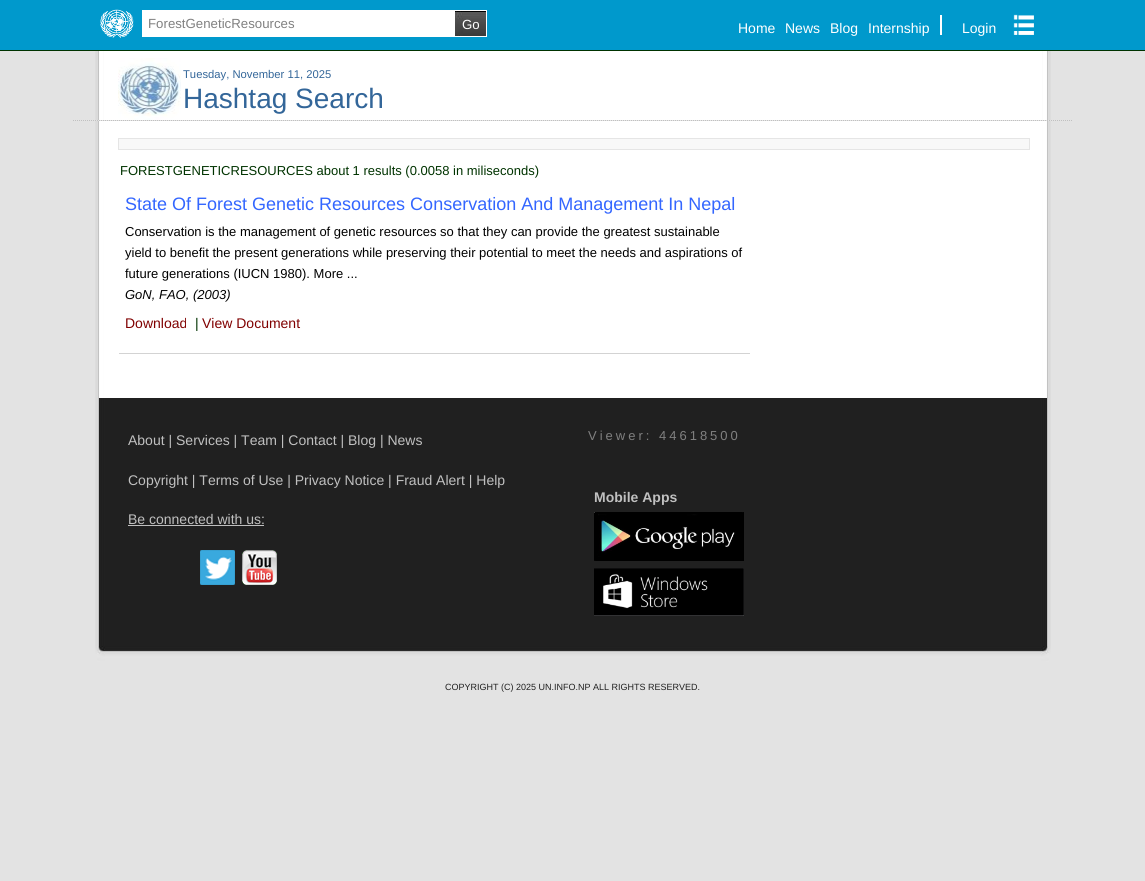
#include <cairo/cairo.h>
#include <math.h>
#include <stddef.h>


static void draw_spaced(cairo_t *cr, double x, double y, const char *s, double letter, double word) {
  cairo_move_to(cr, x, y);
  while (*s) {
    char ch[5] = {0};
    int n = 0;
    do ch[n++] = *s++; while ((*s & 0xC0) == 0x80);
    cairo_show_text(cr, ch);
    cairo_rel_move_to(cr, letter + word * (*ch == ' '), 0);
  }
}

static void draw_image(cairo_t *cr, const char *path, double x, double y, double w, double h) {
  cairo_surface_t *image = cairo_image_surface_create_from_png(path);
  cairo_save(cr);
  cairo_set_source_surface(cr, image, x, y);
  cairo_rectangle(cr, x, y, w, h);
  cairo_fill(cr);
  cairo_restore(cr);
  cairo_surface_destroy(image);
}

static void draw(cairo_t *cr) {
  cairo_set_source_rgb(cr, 227 / 255.0, 227 / 255.0, 227 / 255.0);
  cairo_paint(cr);
  cairo_set_source_rgb(cr, 0, 153 / 255.0, 204 / 255.0);
  cairo_rectangle(cr, 0, 0, 1145, 50);
  cairo_fill(cr);
  cairo_set_source_rgb(cr, 0, 51 / 255.0, 0);
  cairo_rectangle(cr, 0, 50, 1145, 1);
  cairo_fill(cr);
  draw_image(cr, "images/1.png", 100, 9, 34, 29);
  cairo_set_source_rgb(cr, 1, 1, 1);
  cairo_rectangle(cr, 142, 10, 312, 27);
  cairo_fill(cr);
  draw_image(cr, "images/2.png", 455, 11, 31, 25);
  cairo_rectangle(cr, 454.5, 10.5, 32, 26);
  cairo_set_line_width(cr, 1);
  cairo_stroke(cr);
  cairo_rectangle(cr, 940, 15, 2, 20);
  cairo_fill(cr);
  draw_image(cr, "images/3.png", 1013, 14, 21, 21);
  draw_image(cr, "images/4.png", 95, 51, 956, 69);
  cairo_new_path(cr);
  cairo_move_to(cr, 73, 120.5);
  cairo_line_to(cr, 1073, 120.5);
  cairo_set_source_rgb(cr, 192 / 255.0, 192 / 255.0, 192 / 255.0);
  cairo_set_dash(cr, (double[]){1, 1}, 2, 0);
  cairo_stroke(cr);
  draw_image(cr, "images/5.png", 118, 58, 63, 62);
  draw_image(cr, "images/6.png", 95, 121, 956, 277);
  cairo_set_source_rgb(cr, 248 / 255.0, 248 / 255.0, 248 / 255.0);
  cairo_rectangle(cr, 118.5, 138.5, 911, 11);
  cairo_fill_preserve(cr);
  cairo_set_source_rgb(cr, 229 / 255.0, 229 / 255.0, 229 / 255.0);
  cairo_set_dash(cr, NULL, 0, 0);
  cairo_stroke(cr);
  cairo_set_source_rgb(cr, 211 / 255.0, 211 / 255.0, 211 / 255.0);
  cairo_rectangle(cr, 119, 353, 631, 1);
  cairo_fill(cr);
  draw_image(cr, "images/7.png", 95, 398, 956, 248);
  draw_image(cr, "images/8.png", 95, 646, 956, 26);
  cairo_set_source_rgb(cr, 191 / 255.0, 191 / 255.0, 191 / 255.0);
  cairo_rectangle(cr, 128, 525, 136, 1);
  cairo_fill(cr);
  draw_image(cr, "images/9.png", 200, 550, 35, 35);
  draw_image(cr, "images/10.png", 242, 550, 35, 35);
  draw_image(cr, "images/11.png", 594, 512, 150, 49);
  draw_image(cr, "images/12.png", 594, 568, 150, 48);
  cairo_select_font_face(cr, "Liberation Sans", CAIRO_FONT_SLANT_NORMAL, CAIRO_FONT_WEIGHT_NORMAL);
  cairo_set_font_size(cr, 13.25);
  cairo_set_source_rgb(cr, 128 / 255.0, 128 / 255.0, 128 / 255.0);
  cairo_move_to(cr, 148, 28);
  cairo_show_text(cr, "ForestGeneticResources");
  cairo_set_source_rgb(cr, 1, 1, 1);
  cairo_move_to(cr, 462, 29);
  cairo_show_text(cr, "Go");
  cairo_set_font_size(cr, 14);
  cairo_move_to(cr, 738, 33);
  cairo_show_text(cr, "Home");
  cairo_move_to(cr, 785, 33);
  cairo_show_text(cr, "News");
  cairo_move_to(cr, 830, 33);
  cairo_show_text(cr, "Blog");
  cairo_move_to(cr, 868, 33);
  cairo_show_text(cr, "Internship");
  cairo_move_to(cr, 962, 33);
  cairo_show_text(cr, "Login");
  cairo_set_font_size(cr, 11.25);
  cairo_set_source_rgb(cr, 51 / 255.0, 102 / 255.0, 153 / 255.0);
  cairo_move_to(cr, 183, 78);
  cairo_show_text(cr, "Tuesday, November 11, 2025");
  cairo_set_font_size(cr, 28);
  cairo_move_to(cr, 183, 108);
  cairo_show_text(cr, "Hashtag Search");
  cairo_set_font_size(cr, 13);
  cairo_set_source_rgb(cr, 0, 51 / 255.0, 0);
  cairo_move_to(cr, 120, 175);
  cairo_show_text(cr, "FORESTGENETICRESOURCES about 1 results (0.0058 in miliseconds)");
  cairo_set_font_size(cr, 18);
  cairo_set_source_rgb(cr, 51 / 255.0, 102 / 255.0, 1);
  cairo_move_to(cr, 125, 210);
  cairo_show_text(cr, "State Of Forest Genetic Resources Conservation And Management In Nepal");
  cairo_set_font_size(cr, 13);
  cairo_set_source_rgb(cr, 0, 0, 0);
  cairo_move_to(cr, 125, 236);
  cairo_show_text(cr, "Conservation is the management of genetic resources so that they can provide the greatest sustainable");
  cairo_move_to(cr, 125, 257);
  cairo_show_text(cr, "yield to benefit the present generations while preserving their potential to meet the needs and aspirations of");
  cairo_move_to(cr, 125, 278);
  cairo_show_text(cr, "future generations (IUCN 1980). More ...");
  cairo_select_font_face(cr, "Liberation Sans", CAIRO_FONT_SLANT_ITALIC, CAIRO_FONT_WEIGHT_NORMAL);
  cairo_move_to(cr, 125, 299);
  cairo_show_text(cr, "GoN, FAO, (2003)");
  cairo_select_font_face(cr, "Liberation Sans", CAIRO_FONT_SLANT_NORMAL, CAIRO_FONT_WEIGHT_NORMAL);
  cairo_set_font_size(cr, 14);
  cairo_set_source_rgb(cr, 128 / 255.0, 0, 0);
  cairo_move_to(cr, 125, 328);
  cairo_show_text(cr, "Download");
  cairo_set_source_rgb(cr, 0, 51 / 255.0, 0);
  cairo_move_to(cr, 195, 328);
  cairo_show_text(cr, "|");
  cairo_set_source_rgb(cr, 128 / 255.0, 0, 0);
  cairo_move_to(cr, 202, 328);
  cairo_show_text(cr, "View Document");
  cairo_set_source_rgb(cr, 192 / 255.0, 192 / 255.0, 192 / 255.0);
  cairo_move_to(cr, 128, 445);
  cairo_show_text(cr, "About | Services | Team | Contact | Blog | News");
  cairo_move_to(cr, 128, 485);
  cairo_show_text(cr, "Copyright | Terms of Use | Privacy Notice | Fraud Alert | Help");
  cairo_move_to(cr, 128, 524);
  cairo_show_text(cr, "Be connected with us:");
  cairo_set_font_size(cr, 13);
  cairo_set_source_rgb(cr, 128 / 255.0, 128 / 255.0, 128 / 255.0);
  draw_spaced(cr, 588, 440, "Viewer: 44618500", 3, 0);
  cairo_select_font_face(cr, "Liberation Sans", CAIRO_FONT_SLANT_NORMAL, CAIRO_FONT_WEIGHT_BOLD);
  cairo_set_font_size(cr, 14);
  cairo_set_source_rgb(cr, 192 / 255.0, 192 / 255.0, 192 / 255.0);
  cairo_move_to(cr, 594, 502);
  cairo_show_text(cr, "Mobile Apps");
  cairo_select_font_face(cr, "Liberation Sans", CAIRO_FONT_SLANT_NORMAL, CAIRO_FONT_WEIGHT_NORMAL);
  cairo_set_font_size(cr, 9);
  cairo_set_source_rgb(cr, 32 / 255.0, 32 / 255.0, 32 / 255.0);
  cairo_move_to(cr, 445, 690);
  cairo_show_text(cr, "COPYRIGHT (C) 2025 UN.INFO.NP ALL RIGHTS RESERVED.");
}

int main(void) {
  cairo_surface_t *surface = cairo_image_surface_create(CAIRO_FORMAT_RGB24, 1145, 881);
  cairo_t *cr = cairo_create(surface);
  cairo_font_options_t *options = cairo_font_options_create();
  cairo_font_options_set_hint_metrics(options, CAIRO_HINT_METRICS_OFF);
  cairo_font_options_set_hint_style(options, CAIRO_HINT_STYLE_NONE);
  cairo_set_font_options(cr, options);
  cairo_set_miter_limit(cr, 4);
  draw(cr);
  cairo_surface_write_to_png(surface, "out.png");
  cairo_font_options_destroy(options);
  cairo_destroy(cr);
  cairo_surface_destroy(surface);
  return 0;
}
